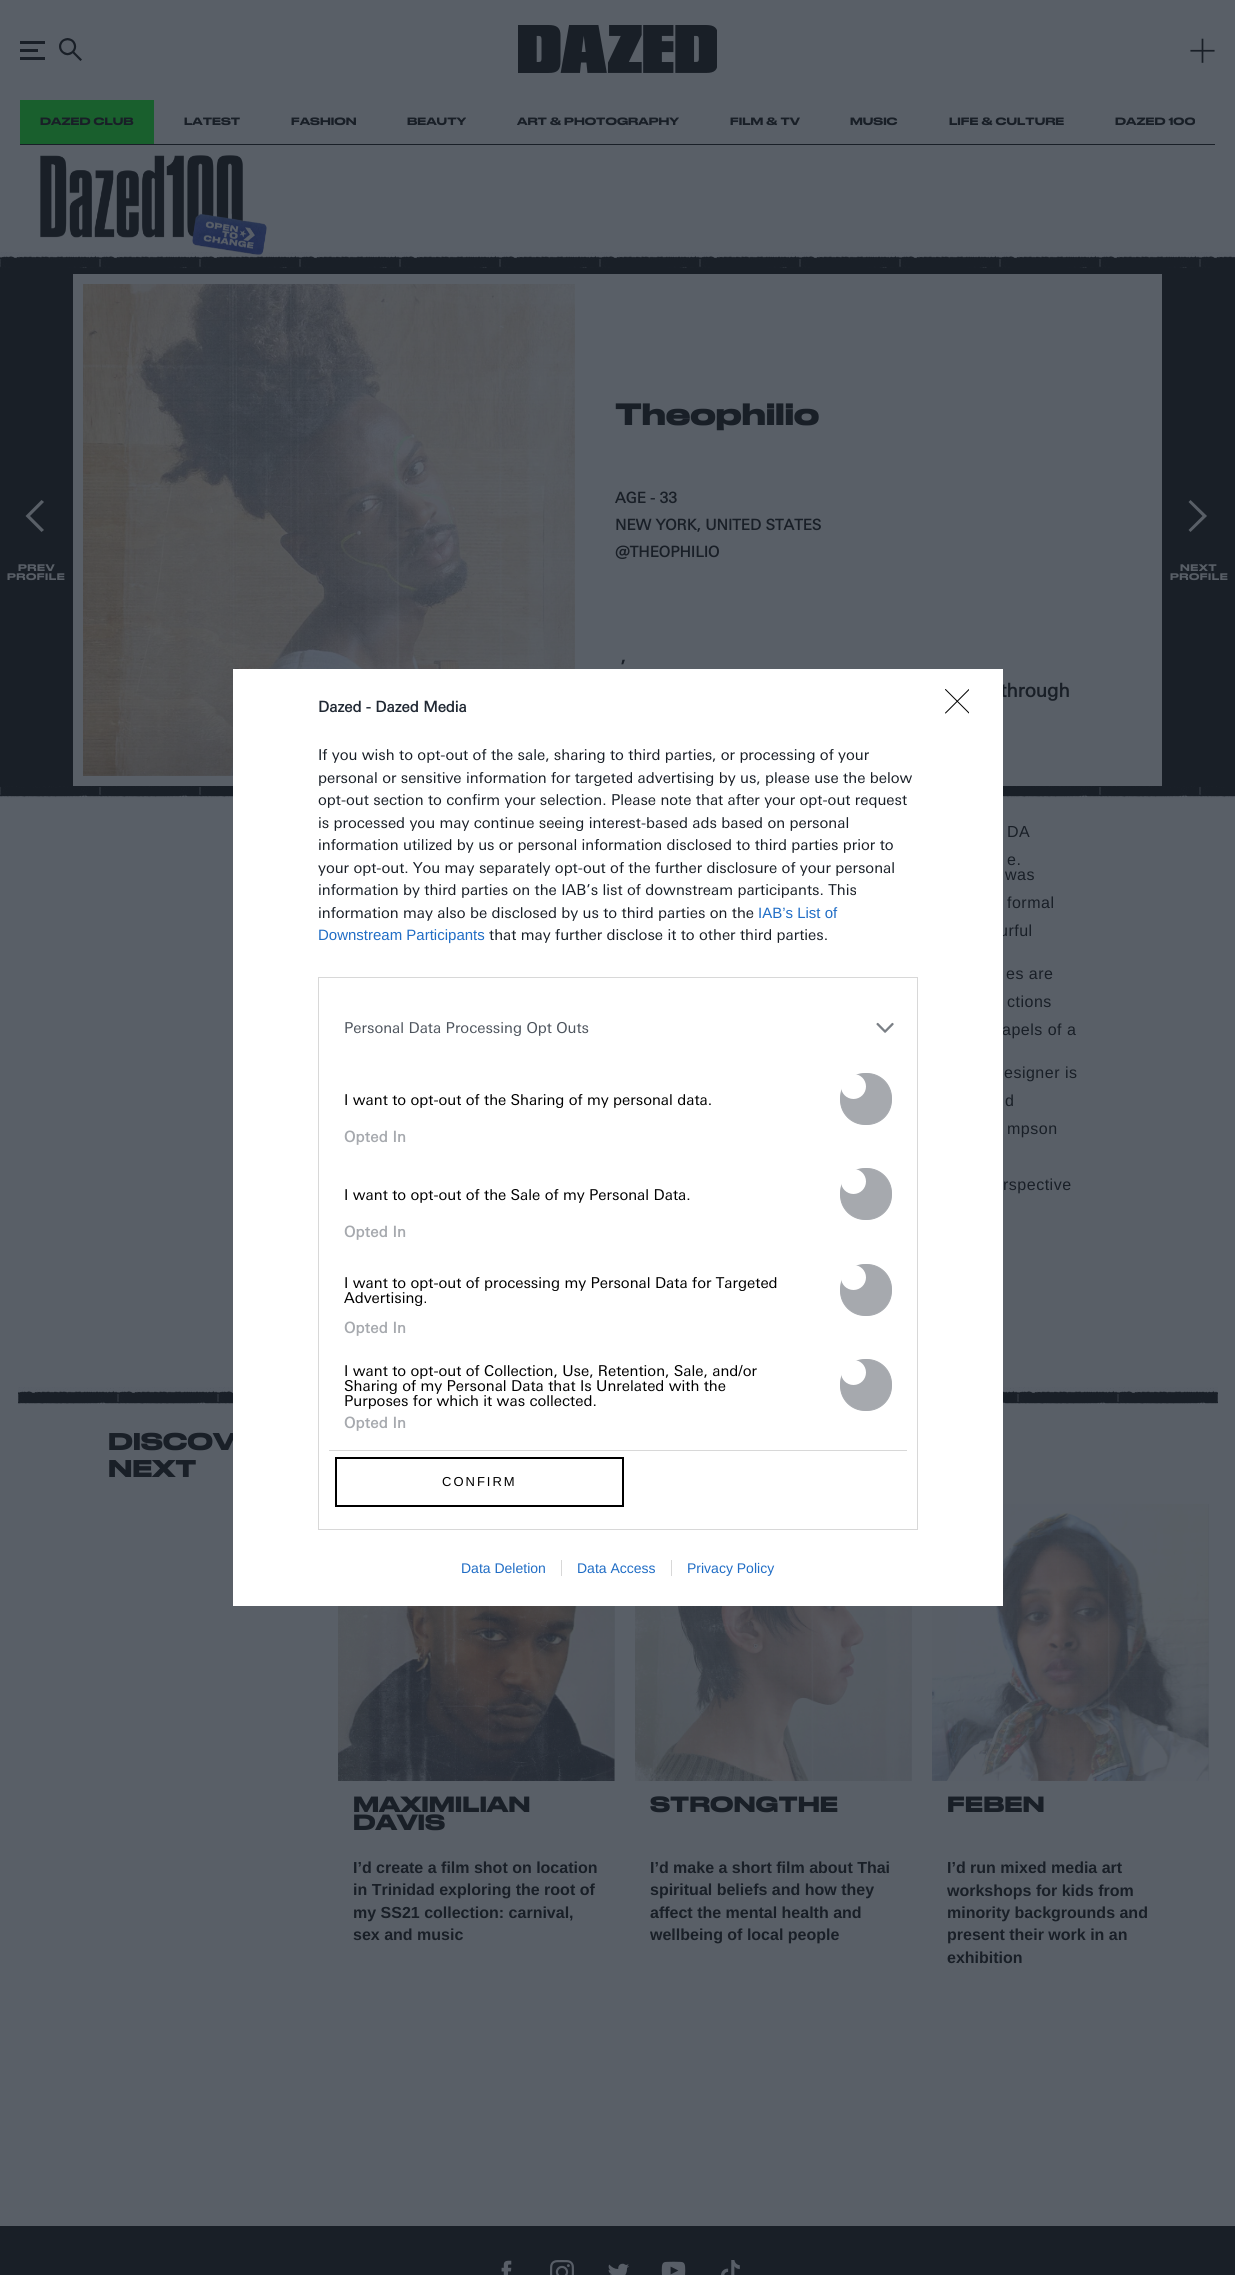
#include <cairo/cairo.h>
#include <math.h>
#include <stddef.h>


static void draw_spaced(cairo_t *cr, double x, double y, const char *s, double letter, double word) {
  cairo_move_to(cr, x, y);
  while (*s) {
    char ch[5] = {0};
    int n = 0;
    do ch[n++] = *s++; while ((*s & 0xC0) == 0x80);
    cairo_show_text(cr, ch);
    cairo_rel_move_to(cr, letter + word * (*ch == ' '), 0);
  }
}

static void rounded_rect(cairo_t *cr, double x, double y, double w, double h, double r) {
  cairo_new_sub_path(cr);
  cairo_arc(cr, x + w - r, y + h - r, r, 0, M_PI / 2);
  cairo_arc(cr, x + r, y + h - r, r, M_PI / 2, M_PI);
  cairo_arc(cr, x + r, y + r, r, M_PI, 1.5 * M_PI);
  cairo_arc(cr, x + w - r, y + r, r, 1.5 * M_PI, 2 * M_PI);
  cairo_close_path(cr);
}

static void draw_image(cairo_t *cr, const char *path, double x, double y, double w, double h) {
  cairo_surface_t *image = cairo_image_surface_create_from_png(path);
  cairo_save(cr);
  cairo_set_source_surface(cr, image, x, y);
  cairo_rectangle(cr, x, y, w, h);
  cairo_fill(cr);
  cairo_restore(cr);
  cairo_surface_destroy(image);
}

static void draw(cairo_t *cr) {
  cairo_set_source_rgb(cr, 89 / 255.0, 95 / 255.0, 103 / 255.0);
  cairo_paint(cr);
  cairo_set_source_rgb(cr, 25 / 255.0, 31 / 255.0, 39 / 255.0);
  cairo_rectangle(cr, 20, 41, 25, 3);
  cairo_fill(cr);
  cairo_rectangle(cr, 20, 49, 18, 3);
  cairo_fill(cr);
  cairo_rectangle(cr, 20, 57, 25, 3);
  cairo_fill(cr);
  draw_image(cr, "images/1.png", 59, 38, 23, 23);
  draw_image(cr, "images/2.png", 518, 25, 199, 48);
  draw_image(cr, "images/3.png", 1190, 38, 25, 25);
  cairo_rectangle(cr, 20, 144, 1195, 1);
  cairo_fill(cr);
  cairo_set_source_rgb(cr, 25 / 255.0, 95 / 255.0, 45 / 255.0);
  cairo_rectangle(cr, 20, 100, 134, 44);
  cairo_fill(cr);
  draw_image(cr, "images/5.png", 0, 252, 1235, 16);
  draw_image(cr, "images/4.png", 40, 155, 227, 100);
  cairo_set_source_rgb(cr, 25 / 255.0, 31 / 255.0, 39 / 255.0);
  cairo_rectangle(cr, 0, 268, 1235, 518);
  cairo_fill(cr);
  cairo_set_source_rgb(cr, 89 / 255.0, 95 / 255.0, 103 / 255.0);
  cairo_new_path(cr);
  cairo_move_to(cr, 30, 516);
  cairo_line_to(cr, 44, 530);
  cairo_line_to(cr, 41.5, 532);
  cairo_line_to(cr, 25.5, 516);
  cairo_line_to(cr, 41.5, 500);
  cairo_line_to(cr, 44, 502);
  cairo_close_path(cr);
  cairo_fill(cr);
  cairo_rectangle(cr, 73, 274, 1089, 512);
  cairo_fill(cr);
  draw_image(cr, "images/6.png", 83, 284, 492, 492);
  cairo_new_path(cr);
  cairo_move_to(cr, 1202.5, 516);
  cairo_line_to(cr, 1188.5, 502);
  cairo_line_to(cr, 1190.5, 500);
  cairo_line_to(cr, 1207, 516);
  cairo_line_to(cr, 1190.5, 532);
  cairo_line_to(cr, 1188.5, 530);
  cairo_close_path(cr);
  cairo_fill(cr);
  draw_image(cr, "images/7.png", 0, 786, 1235, 12);
  draw_image(cr, "images/8.png", 18, 1387, 1200, 17);
  cairo_set_source_rgb(cr, 84 / 255.0, 90 / 255.0, 99 / 255.0);
  cairo_rectangle(cr, 614, 1606, 1, 175);
  cairo_fill(cr);
  draw_image(cr, "images/9.png", 338, 1606, 277, 175);
  cairo_rectangle(cr, 911, 1606, 1, 175);
  cairo_fill(cr);
  draw_image(cr, "images/10.png", 635, 1606, 277, 175);
  cairo_rectangle(cr, 1208, 1504, 1, 277);
  cairo_fill(cr);
  draw_image(cr, "images/11.png", 932, 1504, 277, 277);
  cairo_set_source_rgb(cr, 25 / 255.0, 31 / 255.0, 39 / 255.0);
  cairo_rectangle(cr, 0, 2226, 1235, 49);
  cairo_fill(cr);
  draw_image(cr, "images/13.png", 501, 2260, 11, 15);
  draw_image(cr, "images/14.png", 550, 2260, 24, 15);
  draw_image(cr, "images/15.png", 608, 2263, 21, 12);
  draw_image(cr, "images/16.png", 661, 2261, 25, 14);
  draw_image(cr, "images/17.png", 721, 2260, 19, 15);
  cairo_select_font_face(cr, "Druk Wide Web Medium", CAIRO_FONT_SLANT_NORMAL, CAIRO_FONT_WEIGHT_NORMAL);
  cairo_set_font_size(cr, 10);
  cairo_move_to(cr, 40, 125);
  cairo_show_text(cr, "DAZED CLUB");
  cairo_move_to(cr, 184, 125);
  cairo_show_text(cr, "LATEST");
  cairo_move_to(cr, 291, 125);
  cairo_show_text(cr, "FASHION");
  cairo_move_to(cr, 407, 125);
  cairo_show_text(cr, "BEAUTY");
  cairo_move_to(cr, 517, 125);
  cairo_show_text(cr, "ART & PHOTOGRAPHY");
  cairo_move_to(cr, 730, 125);
  cairo_show_text(cr, "FILM & TV");
  cairo_move_to(cr, 850, 125);
  cairo_show_text(cr, "MUSIC");
  cairo_move_to(cr, 949, 125);
  cairo_show_text(cr, "LIFE & CULTURE");
  cairo_move_to(cr, 1115, 125);
  cairo_show_text(cr, "DAZED 100");
  cairo_set_font_size(cr, 9);
  cairo_set_source_rgb(cr, 89 / 255.0, 95 / 255.0, 103 / 255.0);
  draw_spaced(cr, 18, 571, "PREV", 0.5, 0);
  draw_spaced(cr, 7, 580, "PROFILE", 0.5, 0);
  cairo_select_font_face(cr, "Druk Wide Web", CAIRO_FONT_SLANT_NORMAL, CAIRO_FONT_WEIGHT_BOLD);
  cairo_set_font_size(cr, 28);
  cairo_set_source_rgb(cr, 25 / 255.0, 31 / 255.0, 39 / 255.0);
  draw_spaced(cr, 615, 425, "Theophilio", 0.5, 0);
  cairo_select_font_face(cr, "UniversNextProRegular", CAIRO_FONT_SLANT_NORMAL, CAIRO_FONT_WEIGHT_BOLD);
  cairo_set_font_size(cr, 15);
  cairo_move_to(cr, 615, 503);
  cairo_show_text(cr, "AGE - 33");
  cairo_move_to(cr, 615, 530);
  cairo_show_text(cr, "NEW YORK, UNITED STATES");
  cairo_move_to(cr, 615, 557);
  cairo_show_text(cr, "@THEOPHILIO");
  cairo_set_font_size(cr, 19);
  cairo_move_to(cr, 620, 674);
  cairo_show_text(cr, "’");
  cairo_move_to(cr, 1000, 697);
  cairo_show_text(cr, "through");
  cairo_select_font_face(cr, "Druk Wide Web Medium", CAIRO_FONT_SLANT_NORMAL, CAIRO_FONT_WEIGHT_NORMAL);
  cairo_set_font_size(cr, 9);
  cairo_set_source_rgb(cr, 89 / 255.0, 95 / 255.0, 103 / 255.0);
  draw_spaced(cr, 1180, 571, "NEXT", 0.5, 0);
  draw_spaced(cr, 1170, 580, "PROFILE", 0.5, 0);
  cairo_select_font_face(cr, "Liberation Sans", CAIRO_FONT_SLANT_NORMAL, CAIRO_FONT_WEIGHT_NORMAL);
  cairo_set_font_size(cr, 16);
  cairo_set_source_rgb(cr, 25 / 255.0, 31 / 255.0, 39 / 255.0);
  draw_spaced(cr, 1007, 837, "DA", 0.5, 0);
  draw_spaced(cr, 1007, 865, "e.", 0.5, 0);
  draw_spaced(cr, 1005, 880, "was", 0.5, 0);
  draw_spaced(cr, 1007, 908, "formal", 0.5, 0);
  draw_spaced(cr, 999, 936, "urful", 0.5, 0);
  draw_spaced(cr, 1006, 979, "es are", 0.5, 0);
  draw_spaced(cr, 1007, 1007, "ctions", 0.5, 0);
  draw_spaced(cr, 1002, 1035, "apels of a", 0.5, 0);
  draw_spaced(cr, 1004, 1078, "esigner is", 0.5, 0);
  draw_spaced(cr, 1005, 1106, "d", 0.5, 0);
  draw_spaced(cr, 1007, 1134, "mpson", 0.5, 0);
  draw_spaced(cr, 1003, 1190, "rspective", 0.5, 0);
  cairo_select_font_face(cr, "Druk Wide Web", CAIRO_FONT_SLANT_NORMAL, CAIRO_FONT_WEIGHT_BOLD);
  cairo_set_font_size(cr, 22);
  draw_spaced(cr, 108, 1450, "DISCOV", 0.5, 0);
  draw_spaced(cr, 108, 1477, "NEXT", 0.5, 0);
  cairo_set_font_size(cr, 20);
  draw_spaced(cr, 353, 1812, "MAXIMILIAN", 0.5, 0);
  draw_spaced(cr, 353, 1830, "DAVIS", 0.5, 0);
  cairo_select_font_face(cr, "Liberation Sans", CAIRO_FONT_SLANT_NORMAL, CAIRO_FONT_WEIGHT_BOLD);
  cairo_set_font_size(cr, 16);
  cairo_move_to(cr, 353, 1873);
  cairo_show_text(cr, "I’d create a film shot on location");
  cairo_move_to(cr, 353, 1895);
  cairo_show_text(cr, "in Trinidad exploring the root of");
  cairo_move_to(cr, 353, 1918);
  cairo_show_text(cr, "my SS21 collection: carnival,");
  cairo_move_to(cr, 353, 1940);
  cairo_show_text(cr, "sex and music");
  cairo_select_font_face(cr, "Druk Wide Web", CAIRO_FONT_SLANT_NORMAL, CAIRO_FONT_WEIGHT_BOLD);
  cairo_set_font_size(cr, 20);
  draw_spaced(cr, 650, 1812, "STRONGTHE", 0.5, 0);
  cairo_select_font_face(cr, "Liberation Sans", CAIRO_FONT_SLANT_NORMAL, CAIRO_FONT_WEIGHT_BOLD);
  cairo_set_font_size(cr, 16);
  cairo_move_to(cr, 650, 1873);
  cairo_show_text(cr, "I’d make a short film about Thai");
  cairo_move_to(cr, 650, 1895);
  cairo_show_text(cr, "spiritual beliefs and how they");
  cairo_move_to(cr, 650, 1918);
  cairo_show_text(cr, "affect the mental health and");
  cairo_move_to(cr, 650, 1940);
  cairo_show_text(cr, "wellbeing of local people");
  cairo_select_font_face(cr, "Druk Wide Web", CAIRO_FONT_SLANT_NORMAL, CAIRO_FONT_WEIGHT_BOLD);
  cairo_set_font_size(cr, 20);
  draw_spaced(cr, 947, 1812, "FEBEN", 0.5, 0);
  cairo_select_font_face(cr, "Liberation Sans", CAIRO_FONT_SLANT_NORMAL, CAIRO_FONT_WEIGHT_BOLD);
  cairo_set_font_size(cr, 16);
  cairo_move_to(cr, 947, 1873);
  cairo_show_text(cr, "I’d run mixed media art");
  cairo_move_to(cr, 947, 1896);
  cairo_show_text(cr, "workshops for kids from");
  cairo_move_to(cr, 947, 1918);
  cairo_show_text(cr, "minority backgrounds and");
  cairo_move_to(cr, 947, 1940);
  cairo_show_text(cr, "present their work in an");
  cairo_move_to(cr, 947, 1963);
  cairo_show_text(cr, "exhibition");
  cairo_set_source_rgb(cr, 1, 1, 1);
  cairo_rectangle(cr, 233, 669, 770, 937);
  cairo_fill(cr);
  cairo_select_font_face(cr, "UniversNextProRegular", CAIRO_FONT_SLANT_NORMAL, CAIRO_FONT_WEIGHT_BOLD);
  cairo_set_font_size(cr, 15);
  cairo_set_source_rgb(cr, 33 / 255.0, 41 / 255.0, 52 / 255.0);
  cairo_move_to(cr, 318, 712);
  cairo_show_text(cr, "Dazed - Dazed Media");
  cairo_select_font_face(cr, "UniversNextProRegular", CAIRO_FONT_SLANT_NORMAL, CAIRO_FONT_WEIGHT_NORMAL);
  cairo_set_source_rgb(cr, 25 / 255.0, 31 / 255.0, 39 / 255.0);
  cairo_move_to(cr, 318, 760);
  cairo_show_text(cr, "If you wish to opt-out of the sale, sharing to third parties, or processing of your");
  cairo_move_to(cr, 318, 783);
  cairo_show_text(cr, "personal or sensitive information for targeted advertising by us, please use the below");
  cairo_move_to(cr, 318, 805);
  cairo_show_text(cr, "opt-out section to confirm your selection. Please note that after your opt-out request");
  cairo_move_to(cr, 318, 828);
  cairo_show_text(cr, "is processed you may continue seeing interest-based ads based on personal");
  cairo_move_to(cr, 318, 850);
  cairo_show_text(cr, "information utilized by us or personal information disclosed to third parties prior to");
  cairo_move_to(cr, 318, 873);
  cairo_show_text(cr, "your opt-out. You may separately opt-out of the further disclosure of your personal");
  cairo_move_to(cr, 318, 895);
  cairo_show_text(cr, "information by third parties on the IAB’s list of downstream participants. This");
  cairo_move_to(cr, 318, 918);
  cairo_show_text(cr, "information may also be disclosed by us to third parties on the");
  cairo_select_font_face(cr, "Liberation Sans", CAIRO_FONT_SLANT_NORMAL, CAIRO_FONT_WEIGHT_NORMAL);
  cairo_set_source_rgb(cr, 32 / 255.0, 109 / 255.0, 197 / 255.0);
  cairo_move_to(cr, 758, 918);
  cairo_show_text(cr, "IAB’s List of");
  cairo_move_to(cr, 318, 940);
  cairo_show_text(cr, "Downstream Participants");
  cairo_select_font_face(cr, "UniversNextProRegular", CAIRO_FONT_SLANT_NORMAL, CAIRO_FONT_WEIGHT_NORMAL);
  cairo_set_source_rgb(cr, 25 / 255.0, 31 / 255.0, 39 / 255.0);
  cairo_move_to(cr, 489, 940);
  cairo_show_text(cr, "that may further disclose it to other third parties.");
  cairo_rectangle(cr, 318.5, 977.5, 599, 552);
  cairo_set_source_rgb(cr, 216 / 255.0, 216 / 255.0, 216 / 255.0);
  cairo_set_line_width(cr, 1);
  cairo_stroke(cr);
  cairo_rectangle(cr, 329, 1450, 578, 1);
  cairo_fill(cr);
  cairo_set_source_rgb(cr, 77 / 255.0, 84 / 255.0, 93 / 255.0);
  cairo_move_to(cr, 344, 1033);
  cairo_show_text(cr, "Personal Data Processing Opt Outs");
  draw_image(cr, "images/12.png", 876, 1022, 18, 11);
  cairo_set_source_rgb(cr, 0, 0, 0);
  cairo_move_to(cr, 344, 1105);
  cairo_show_text(cr, "I want to opt-out of the Sharing of my personal data.");
  cairo_set_source_rgb(cr, 166 / 255.0, 169 / 255.0, 174 / 255.0);
  rounded_rect(cr, 840.5, 1073.5, 51, 51, 24.5);
  cairo_fill_preserve(cr);
  cairo_stroke(cr);
  cairo_set_source_rgb(cr, 1, 1, 1);
  cairo_arc(cr, 853.5, 1086.5, 12.5, 0, 2 * M_PI);
  cairo_fill(cr);
  cairo_select_font_face(cr, "UniversNextProRegular", CAIRO_FONT_SLANT_NORMAL, CAIRO_FONT_WEIGHT_BOLD);
  cairo_set_source_rgb(cr, 166 / 255.0, 169 / 255.0, 174 / 255.0);
  draw_spaced(cr, 344, 1142, "Opted In", 0.25, 0);
  cairo_select_font_face(cr, "UniversNextProRegular", CAIRO_FONT_SLANT_NORMAL, CAIRO_FONT_WEIGHT_NORMAL);
  cairo_set_source_rgb(cr, 0, 0, 0);
  cairo_move_to(cr, 344, 1200);
  cairo_show_text(cr, "I want to opt-out of the Sale of my Personal Data.");
  cairo_set_source_rgb(cr, 166 / 255.0, 169 / 255.0, 174 / 255.0);
  rounded_rect(cr, 840.5, 1168.5, 51, 51, 24.5);
  cairo_fill_preserve(cr);
  cairo_stroke(cr);
  cairo_set_source_rgb(cr, 1, 1, 1);
  cairo_arc(cr, 853.5, 1181.5, 12.5, 0, 2 * M_PI);
  cairo_fill(cr);
  cairo_select_font_face(cr, "UniversNextProRegular", CAIRO_FONT_SLANT_NORMAL, CAIRO_FONT_WEIGHT_BOLD);
  cairo_set_source_rgb(cr, 166 / 255.0, 169 / 255.0, 174 / 255.0);
  draw_spaced(cr, 344, 1237, "Opted In", 0.25, 0);
  cairo_select_font_face(cr, "UniversNextProRegular", CAIRO_FONT_SLANT_NORMAL, CAIRO_FONT_WEIGHT_NORMAL);
  cairo_set_source_rgb(cr, 0, 0, 0);
  cairo_move_to(cr, 344, 1288);
  cairo_show_text(cr, "I want to opt-out of processing my Personal Data for Targeted");
  cairo_move_to(cr, 344, 1303);
  cairo_show_text(cr, "Advertising.");
  cairo_set_source_rgb(cr, 166 / 255.0, 169 / 255.0, 174 / 255.0);
  rounded_rect(cr, 840.5, 1264.5, 51, 51, 24.5);
  cairo_fill_preserve(cr);
  cairo_stroke(cr);
  cairo_set_source_rgb(cr, 1, 1, 1);
  cairo_arc(cr, 853.5, 1277.5, 12.5, 0, 2 * M_PI);
  cairo_fill(cr);
  cairo_select_font_face(cr, "UniversNextProRegular", CAIRO_FONT_SLANT_NORMAL, CAIRO_FONT_WEIGHT_BOLD);
  cairo_set_source_rgb(cr, 166 / 255.0, 169 / 255.0, 174 / 255.0);
  draw_spaced(cr, 344, 1333, "Opted In", 0.25, 0);
  cairo_select_font_face(cr, "UniversNextProRegular", CAIRO_FONT_SLANT_NORMAL, CAIRO_FONT_WEIGHT_NORMAL);
  cairo_set_source_rgb(cr, 0, 0, 0);
  cairo_move_to(cr, 344, 1376);
  cairo_show_text(cr, "I want to opt-out of Collection, Use, Retention, Sale, and/or");
  cairo_move_to(cr, 344, 1391);
  cairo_show_text(cr, "Sharing of my Personal Data that Is Unrelated with the");
  cairo_move_to(cr, 344, 1406);
  cairo_show_text(cr, "Purposes for which it was collected.");
  cairo_set_source_rgb(cr, 166 / 255.0, 169 / 255.0, 174 / 255.0);
  rounded_rect(cr, 840.5, 1359.5, 51, 51, 24.5);
  cairo_fill_preserve(cr);
  cairo_stroke(cr);
  cairo_set_source_rgb(cr, 1, 1, 1);
  cairo_arc(cr, 853.5, 1372.5, 12.5, 0, 2 * M_PI);
  cairo_fill(cr);
  cairo_select_font_face(cr, "UniversNextProRegular", CAIRO_FONT_SLANT_NORMAL, CAIRO_FONT_WEIGHT_BOLD);
  cairo_set_source_rgb(cr, 166 / 255.0, 169 / 255.0, 174 / 255.0);
  draw_spaced(cr, 344, 1428, "Opted In", 0.25, 0);
  cairo_rectangle(cr, 336, 1458, 287, 48);
  cairo_set_source_rgb(cr, 0, 0, 0);
  cairo_set_line_width(cr, 2);
  cairo_stroke(cr);
  cairo_select_font_face(cr, "Liberation Sans", CAIRO_FONT_SLANT_NORMAL, CAIRO_FONT_WEIGHT_NORMAL);
  cairo_set_font_size(cr, 13);
  draw_spaced(cr, 442, 1486, "CONFIRM", 2, 0);
  cairo_save(cr);
  cairo_rectangle(cr, 945, 689, 24, 25);
  cairo_clip(cr);
  cairo_new_path(cr);
  cairo_move_to(cr, 945.5, 689.5);
  cairo_line_to(cr, 969, 713);
  cairo_move_to(cr, 969, 689.5);
  cairo_line_to(cr, 945.5, 713);
  cairo_set_line_width(cr, 1);
  cairo_set_line_cap(cr, CAIRO_LINE_CAP_ROUND);
  cairo_set_line_join(cr, CAIRO_LINE_JOIN_ROUND);
  cairo_stroke(cr);
  cairo_restore(cr);
  cairo_set_font_size(cr, 14);
  cairo_set_source_rgb(cr, 32 / 255.0, 109 / 255.0, 197 / 255.0);
  cairo_move_to(cr, 461, 1573);
  cairo_show_text(cr, "Data Deletion");
  cairo_move_to(cr, 577, 1573);
  cairo_show_text(cr, "Data Access");
  cairo_set_source_rgb(cr, 216 / 255.0, 216 / 255.0, 216 / 255.0);
  cairo_rectangle(cr, 561, 1560, 1, 16);
  cairo_fill(cr);
  cairo_set_source_rgb(cr, 32 / 255.0, 109 / 255.0, 197 / 255.0);
  cairo_move_to(cr, 687, 1573);
  cairo_show_text(cr, "Privacy Policy");
  cairo_set_source_rgb(cr, 216 / 255.0, 216 / 255.0, 216 / 255.0);
  cairo_rectangle(cr, 671, 1560, 1, 16);
  cairo_fill(cr);
}

int main(void) {
  cairo_surface_t *surface = cairo_image_surface_create(CAIRO_FORMAT_RGB24, 1235, 2275);
  cairo_t *cr = cairo_create(surface);
  cairo_font_options_t *options = cairo_font_options_create();
  cairo_font_options_set_hint_metrics(options, CAIRO_HINT_METRICS_OFF);
  cairo_font_options_set_hint_style(options, CAIRO_HINT_STYLE_NONE);
  cairo_set_font_options(cr, options);
  cairo_set_miter_limit(cr, 4);
  draw(cr);
  cairo_surface_write_to_png(surface, "out.png");
  cairo_font_options_destroy(options);
  cairo_destroy(cr);
  cairo_surface_destroy(surface);
  return 0;
}
